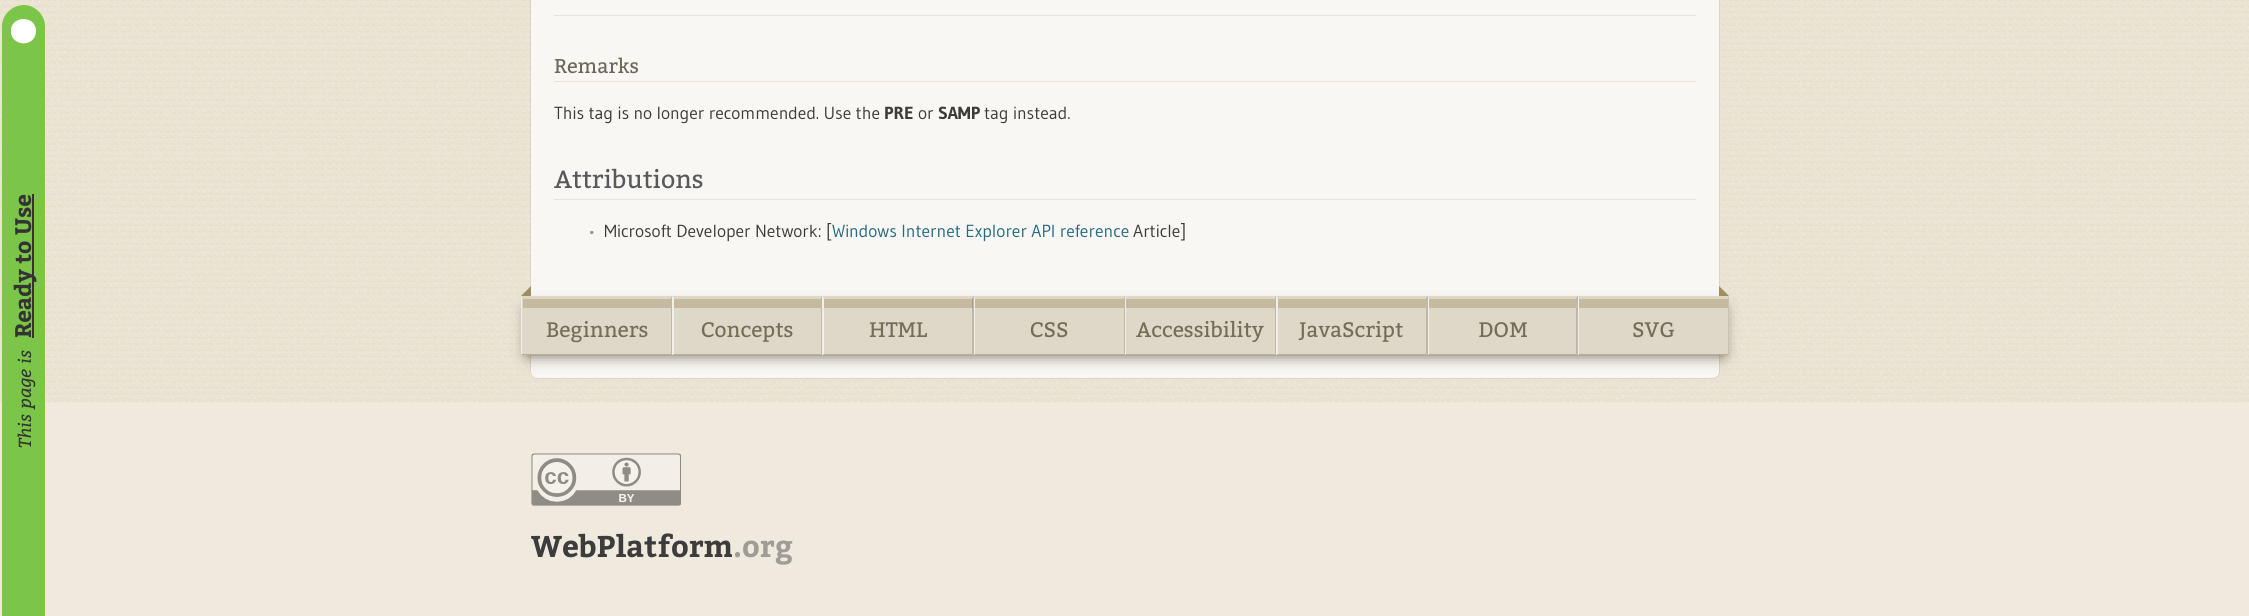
#include <cairo/cairo.h>
#include <math.h>
#include <stddef.h>


static void rounded_rect(cairo_t *cr, double x, double y, double w, double h, double r) {
  cairo_new_sub_path(cr);
  cairo_arc(cr, x + w - r, y + h - r, r, 0, M_PI / 2);
  cairo_arc(cr, x + r, y + h - r, r, M_PI / 2, M_PI);
  cairo_arc(cr, x + r, y + r, r, M_PI, 1.5 * M_PI);
  cairo_arc(cr, x + w - r, y + r, r, 1.5 * M_PI, 2 * M_PI);
  cairo_close_path(cr);
}

static void draw_shadow(cairo_t *cr, double x, double y, double w, double h, double r, double blur, double alpha) {
  cairo_push_group_with_content(cr, CAIRO_CONTENT_ALPHA);
  cairo_set_operator(cr, CAIRO_OPERATOR_SOURCE);
  for (int i = 15; i >= -15 && fmin(w, h) + blur * i / 3 > 0; i -= 2) {
    double e = blur * i / 6;
    cairo_set_source_rgba(cr, 0, 0, 0, alpha * erfc((i - 1) / 8.5) / 2);
    rounded_rect(cr, x - e, y - e, w + 2 * e, h + 2 * e, fmax(0, fmin(r + e + blur * .6, fmin(w, h) / 2 + e)));
    cairo_fill(cr);
  }
  cairo_pattern_t *soft = cairo_pop_group(cr);
  cairo_mask(cr, soft);
  cairo_pattern_destroy(soft);
}

static void draw_image(cairo_t *cr, const char *path, double x, double y, double w, double h) {
  cairo_surface_t *image = cairo_image_surface_create_from_png(path);
  cairo_save(cr);
  cairo_set_source_surface(cr, image, x, y);
  cairo_rectangle(cr, x, y, w, h);
  cairo_fill(cr);
  cairo_restore(cr);
  cairo_surface_destroy(image);
}

static void draw(cairo_t *cr) {
  cairo_set_source_rgb(cr, 1, 1, 1);
  cairo_paint(cr);
  draw_image(cr, "images/1.png", 0, 0, 2249, 403);
  cairo_set_source_rgb(cr, 239 / 255.0, 234 / 255.0, 221 / 255.0);
  cairo_rectangle(cr, 0, 404, 2249, 212);
  cairo_fill(cr);
  cairo_set_source_rgb(cr, 241 / 255.0, 237 / 255.0, 223 / 255.0);
  cairo_rectangle(cr, 0, 403, 2249, 1);
  cairo_fill(cr);
  cairo_set_source_rgb(cr, 123 / 255.0, 198 / 255.0, 73 / 255.0);
  cairo_new_path(cr);
  cairo_move_to(cr, 2, 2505);
  cairo_line_to(cr, 2, 26);
  cairo_curve_to(cr, 2, 15, 12, 5, 24, 5);
  cairo_curve_to(cr, 35, 5, 45, 15, 45, 26);
  cairo_line_to(cr, 45, 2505);
  cairo_close_path(cr);
  cairo_fill(cr);
  cairo_set_source_rgb(cr, 1, 1, 1);
  cairo_new_path(cr);
  cairo_move_to(cr, 11, 33.5);
  cairo_line_to(cr, 11, 28.5);
  cairo_curve_to(cr, 14, 15, 36, 16, 36, 31);
  cairo_curve_to(cr, 36, 46.5, 14, 47.5, 11, 33.5);
  cairo_close_path(cr);
  cairo_fill(cr);
  cairo_set_source_rgb(cr, 51 / 255.0, 51 / 255.0, 51 / 255.0);
  cairo_rectangle(cr, 32, 194, 2, 144);
  cairo_fill(cr);
  cairo_set_source_rgb(cr, 167 / 255.0, 169 / 255.0, 172 / 255.0);
  draw_shadow(cr, 531, -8, 1188, 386, 6, 0.5, 1);
  cairo_set_source_rgb(cr, 249 / 255.0, 247 / 255.0, 243 / 255.0);
  rounded_rect(cr, 531, -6, 1188, 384, 6);
  cairo_fill(cr);
  cairo_set_source_rgb(cr, 226 / 255.0, 227 / 255.0, 228 / 255.0);
  cairo_rectangle(cr, 554, 15, 1142, 1);
  cairo_fill(cr);
  cairo_set_source_rgb(cr, 234 / 255.0, 227 / 255.0, 211 / 255.0);
  cairo_rectangle(cr, 554, 81, 1142, 1);
  cairo_fill(cr);
  cairo_set_source_rgb(cr, 226 / 255.0, 227 / 255.0, 228 / 255.0);
  cairo_rectangle(cr, 554, 199, 1142, 1);
  cairo_fill(cr);
  draw_image(cr, "images/2.png", 590, 231, 4, 4);
  cairo_set_source_rgb(cr, 63 / 255.0, 56 / 255.0, 39 / 255.0);
  draw_shadow(cr, 528, 309, 1195, 46, 0, 7.5, 0.8);
  cairo_set_source_rgb(cr, 222 / 255.0, 216 / 255.0, 201 / 255.0);
  cairo_rectangle(cr, 521, 296, 1208, 59);
  cairo_fill(cr);
  cairo_set_source_rgb(cr, 197 / 255.0, 186 / 255.0, 160 / 255.0);
  cairo_rectangle(cr, 523, 299, 148, 9);
  cairo_fill(cr);
  cairo_set_source_rgb(cr, 220 / 255.0, 214 / 255.0, 198 / 255.0);
  cairo_rectangle(cr, 523, 298, 148, 1);
  cairo_fill(cr);
  cairo_set_source_rgb(cr, 189 / 255.0, 184 / 255.0, 171 / 255.0);
  cairo_new_path(cr);
  cairo_move_to(cr, 672, 296);
  cairo_line_to(cr, 672, 355);
  cairo_line_to(cr, 671, 354);
  cairo_line_to(cr, 671, 298);
  cairo_close_path(cr);
  cairo_fill(cr);
  cairo_set_source_rgb(cr, 187 / 255.0, 175 / 255.0, 144 / 255.0);
  cairo_new_path(cr);
  cairo_move_to(cr, 672, 355);
  cairo_line_to(cr, 521, 355);
  cairo_line_to(cr, 522, 354);
  cairo_line_to(cr, 671, 354);
  cairo_close_path(cr);
  cairo_fill(cr);
  cairo_set_source_rgba(cr, 1, 1, 1, 0.6);
  cairo_new_path(cr);
  cairo_move_to(cr, 521, 355);
  cairo_line_to(cr, 521, 296);
  cairo_line_to(cr, 522, 298);
  cairo_line_to(cr, 522, 354);
  cairo_close_path(cr);
  cairo_fill(cr);
  cairo_set_source_rgb(cr, 158 / 255.0, 141 / 255.0, 97 / 255.0);
  cairo_new_path(cr);
  cairo_move_to(cr, 531, 286);
  cairo_line_to(cr, 531, 296);
  cairo_line_to(cr, 521, 296);
  cairo_close_path(cr);
  cairo_fill(cr);
  cairo_set_source_rgb(cr, 197 / 255.0, 186 / 255.0, 160 / 255.0);
  cairo_rectangle(cr, 674, 299, 147, 9);
  cairo_fill(cr);
  cairo_set_source_rgb(cr, 220 / 255.0, 214 / 255.0, 198 / 255.0);
  cairo_rectangle(cr, 674, 298, 147, 1);
  cairo_fill(cr);
  cairo_set_source_rgb(cr, 189 / 255.0, 184 / 255.0, 171 / 255.0);
  cairo_new_path(cr);
  cairo_move_to(cr, 822, 296);
  cairo_line_to(cr, 822, 355);
  cairo_line_to(cr, 821, 354);
  cairo_line_to(cr, 821, 298);
  cairo_close_path(cr);
  cairo_fill(cr);
  cairo_set_source_rgb(cr, 187 / 255.0, 175 / 255.0, 144 / 255.0);
  cairo_new_path(cr);
  cairo_move_to(cr, 822, 355);
  cairo_line_to(cr, 672, 355);
  cairo_line_to(cr, 674, 354);
  cairo_line_to(cr, 821, 354);
  cairo_close_path(cr);
  cairo_fill(cr);
  cairo_set_source_rgba(cr, 1, 1, 1, 0.6);
  cairo_new_path(cr);
  cairo_move_to(cr, 672, 355);
  cairo_line_to(cr, 672, 296);
  cairo_line_to(cr, 674, 298);
  cairo_line_to(cr, 674, 354);
  cairo_close_path(cr);
  cairo_fill(cr);
  cairo_set_source_rgb(cr, 197 / 255.0, 186 / 255.0, 160 / 255.0);
  cairo_rectangle(cr, 824, 299, 149, 9);
  cairo_fill(cr);
  cairo_set_source_rgb(cr, 220 / 255.0, 214 / 255.0, 198 / 255.0);
  cairo_rectangle(cr, 824, 298, 149, 1);
  cairo_fill(cr);
  cairo_set_source_rgba(cr, 0, 0, 0, 0.15);
  cairo_new_path(cr);
  cairo_move_to(cr, 974, 296);
  cairo_line_to(cr, 974, 355);
  cairo_line_to(cr, 972, 354);
  cairo_line_to(cr, 972, 298);
  cairo_close_path(cr);
  cairo_fill(cr);
  cairo_set_source_rgb(cr, 187 / 255.0, 175 / 255.0, 144 / 255.0);
  cairo_new_path(cr);
  cairo_move_to(cr, 974, 355);
  cairo_line_to(cr, 822, 355);
  cairo_line_to(cr, 824, 354);
  cairo_line_to(cr, 972, 354);
  cairo_close_path(cr);
  cairo_fill(cr);
  cairo_set_source_rgba(cr, 1, 1, 1, 0.6);
  cairo_new_path(cr);
  cairo_move_to(cr, 822, 355);
  cairo_line_to(cr, 822, 296);
  cairo_line_to(cr, 824, 298);
  cairo_line_to(cr, 824, 354);
  cairo_close_path(cr);
  cairo_fill(cr);
  cairo_set_source_rgb(cr, 197 / 255.0, 186 / 255.0, 160 / 255.0);
  cairo_rectangle(cr, 975, 299, 149, 9);
  cairo_fill(cr);
  cairo_set_source_rgb(cr, 220 / 255.0, 214 / 255.0, 198 / 255.0);
  cairo_rectangle(cr, 975, 298, 149, 1);
  cairo_fill(cr);
  cairo_set_source_rgb(cr, 189 / 255.0, 184 / 255.0, 171 / 255.0);
  cairo_new_path(cr);
  cairo_move_to(cr, 1125, 296);
  cairo_line_to(cr, 1125, 355);
  cairo_line_to(cr, 1124, 354);
  cairo_line_to(cr, 1124, 298);
  cairo_close_path(cr);
  cairo_fill(cr);
  cairo_set_source_rgb(cr, 187 / 255.0, 175 / 255.0, 144 / 255.0);
  cairo_new_path(cr);
  cairo_move_to(cr, 1125, 355);
  cairo_line_to(cr, 974, 355);
  cairo_line_to(cr, 975, 354);
  cairo_line_to(cr, 1124, 354);
  cairo_close_path(cr);
  cairo_fill(cr);
  cairo_set_source_rgba(cr, 1, 1, 1, 0.6);
  cairo_new_path(cr);
  cairo_move_to(cr, 974, 355);
  cairo_line_to(cr, 974, 296);
  cairo_line_to(cr, 975, 298);
  cairo_line_to(cr, 975, 354);
  cairo_close_path(cr);
  cairo_fill(cr);
  cairo_set_source_rgb(cr, 197 / 255.0, 186 / 255.0, 160 / 255.0);
  cairo_rectangle(cr, 1126, 299, 149, 9);
  cairo_fill(cr);
  cairo_set_source_rgb(cr, 220 / 255.0, 214 / 255.0, 198 / 255.0);
  cairo_rectangle(cr, 1126, 298, 149, 1);
  cairo_fill(cr);
  cairo_set_source_rgb(cr, 189 / 255.0, 184 / 255.0, 171 / 255.0);
  cairo_new_path(cr);
  cairo_move_to(cr, 1276, 296);
  cairo_line_to(cr, 1276, 355);
  cairo_line_to(cr, 1275, 354);
  cairo_line_to(cr, 1275, 298);
  cairo_close_path(cr);
  cairo_fill(cr);
  cairo_set_source_rgb(cr, 187 / 255.0, 175 / 255.0, 144 / 255.0);
  cairo_new_path(cr);
  cairo_move_to(cr, 1276, 355);
  cairo_line_to(cr, 1125, 355);
  cairo_line_to(cr, 1126, 354);
  cairo_line_to(cr, 1275, 354);
  cairo_close_path(cr);
  cairo_fill(cr);
  cairo_set_source_rgba(cr, 1, 1, 1, 0.6);
  cairo_new_path(cr);
  cairo_move_to(cr, 1125, 355);
  cairo_line_to(cr, 1125, 296);
  cairo_line_to(cr, 1126, 298);
  cairo_line_to(cr, 1126, 354);
  cairo_close_path(cr);
  cairo_fill(cr);
  cairo_set_source_rgb(cr, 197 / 255.0, 186 / 255.0, 160 / 255.0);
  cairo_rectangle(cr, 1278, 299, 148, 9);
  cairo_fill(cr);
  cairo_set_source_rgb(cr, 220 / 255.0, 214 / 255.0, 198 / 255.0);
  cairo_rectangle(cr, 1278, 298, 148, 1);
  cairo_fill(cr);
  cairo_set_source_rgb(cr, 189 / 255.0, 184 / 255.0, 171 / 255.0);
  cairo_new_path(cr);
  cairo_move_to(cr, 1428, 296);
  cairo_line_to(cr, 1428, 355);
  cairo_line_to(cr, 1426, 354);
  cairo_line_to(cr, 1426, 298);
  cairo_close_path(cr);
  cairo_fill(cr);
  cairo_set_source_rgb(cr, 187 / 255.0, 175 / 255.0, 144 / 255.0);
  cairo_new_path(cr);
  cairo_move_to(cr, 1428, 355);
  cairo_line_to(cr, 1276, 355);
  cairo_line_to(cr, 1278, 354);
  cairo_line_to(cr, 1426, 354);
  cairo_close_path(cr);
  cairo_fill(cr);
  cairo_set_source_rgba(cr, 1, 1, 1, 0.6);
  cairo_new_path(cr);
  cairo_move_to(cr, 1276, 355);
  cairo_line_to(cr, 1276, 296);
  cairo_line_to(cr, 1278, 298);
  cairo_line_to(cr, 1278, 354);
  cairo_close_path(cr);
  cairo_fill(cr);
  cairo_set_source_rgb(cr, 197 / 255.0, 186 / 255.0, 160 / 255.0);
  cairo_rectangle(cr, 1429, 299, 147, 9);
  cairo_fill(cr);
  cairo_set_source_rgb(cr, 220 / 255.0, 214 / 255.0, 198 / 255.0);
  cairo_rectangle(cr, 1429, 298, 147, 1);
  cairo_fill(cr);
  cairo_set_source_rgb(cr, 189 / 255.0, 184 / 255.0, 171 / 255.0);
  cairo_new_path(cr);
  cairo_move_to(cr, 1578, 296);
  cairo_line_to(cr, 1578, 355);
  cairo_line_to(cr, 1576, 354);
  cairo_line_to(cr, 1576, 298);
  cairo_close_path(cr);
  cairo_fill(cr);
  cairo_set_source_rgb(cr, 187 / 255.0, 175 / 255.0, 144 / 255.0);
  cairo_new_path(cr);
  cairo_move_to(cr, 1578, 355);
  cairo_line_to(cr, 1428, 355);
  cairo_line_to(cr, 1429, 354);
  cairo_line_to(cr, 1576, 354);
  cairo_close_path(cr);
  cairo_fill(cr);
  cairo_set_source_rgba(cr, 1, 1, 1, 0.6);
  cairo_new_path(cr);
  cairo_move_to(cr, 1428, 355);
  cairo_line_to(cr, 1428, 296);
  cairo_line_to(cr, 1429, 298);
  cairo_line_to(cr, 1429, 354);
  cairo_close_path(cr);
  cairo_fill(cr);
  cairo_set_source_rgb(cr, 197 / 255.0, 186 / 255.0, 160 / 255.0);
  cairo_rectangle(cr, 1579, 299, 149, 9);
  cairo_fill(cr);
  cairo_set_source_rgb(cr, 220 / 255.0, 214 / 255.0, 198 / 255.0);
  cairo_rectangle(cr, 1579, 298, 149, 1);
  cairo_fill(cr);
  cairo_set_source_rgb(cr, 200 / 255.0, 194 / 255.0, 181 / 255.0);
  cairo_new_path(cr);
  cairo_move_to(cr, 1729, 296);
  cairo_line_to(cr, 1729, 355);
  cairo_line_to(cr, 1728, 354);
  cairo_line_to(cr, 1728, 298);
  cairo_close_path(cr);
  cairo_fill(cr);
  cairo_set_source_rgb(cr, 187 / 255.0, 175 / 255.0, 144 / 255.0);
  cairo_new_path(cr);
  cairo_move_to(cr, 1729, 355);
  cairo_line_to(cr, 1578, 355);
  cairo_line_to(cr, 1579, 354);
  cairo_line_to(cr, 1728, 354);
  cairo_close_path(cr);
  cairo_fill(cr);
  cairo_set_source_rgba(cr, 1, 1, 1, 0.6);
  cairo_new_path(cr);
  cairo_move_to(cr, 1578, 355);
  cairo_line_to(cr, 1578, 296);
  cairo_line_to(cr, 1579, 298);
  cairo_line_to(cr, 1579, 354);
  cairo_close_path(cr);
  cairo_fill(cr);
  cairo_set_source_rgb(cr, 158 / 255.0, 141 / 255.0, 97 / 255.0);
  cairo_new_path(cr);
  cairo_move_to(cr, 1719, 296);
  cairo_line_to(cr, 1719, 286);
  cairo_line_to(cr, 1729, 296);
  cairo_close_path(cr);
  cairo_fill(cr);
  draw_image(cr, "images/3.png", 531, 453, 150, 53);
  cairo_select_font_face(cr, "Bitter", CAIRO_FONT_SLANT_NORMAL, CAIRO_FONT_WEIGHT_BOLD);
  cairo_set_font_size(cr, 22.5);
  cairo_set_source_rgb(cr, 51 / 255.0, 51 / 255.0, 51 / 255.0);
  cairo_save(cr);
  cairo_translate(cr, 31, 338);
  cairo_rotate(cr, -90 * M_PI / 180);
  cairo_move_to(cr, 0, 0);
  cairo_show_text(cr, "Ready to Use");
  cairo_restore(cr);
  cairo_select_font_face(cr, "Bitter", CAIRO_FONT_SLANT_ITALIC, CAIRO_FONT_WEIGHT_NORMAL);
  cairo_set_font_size(cr, 17.5);
  cairo_save(cr);
  cairo_translate(cr, 31, 448);
  cairo_rotate(cr, -90 * M_PI / 180);
  cairo_move_to(cr, 0, 0);
  cairo_show_text(cr, "This page is");
  cairo_restore(cr);
  cairo_select_font_face(cr, "Bitter", CAIRO_FONT_SLANT_NORMAL, CAIRO_FONT_WEIGHT_NORMAL);
  cairo_set_font_size(cr, 20);
  cairo_set_source_rgb(cr, 109 / 255.0, 104 / 255.0, 91 / 255.0);
  cairo_move_to(cr, 554, 73);
  cairo_show_text(cr, "Remarks");
  cairo_select_font_face(cr, "Gudea", CAIRO_FONT_SLANT_NORMAL, CAIRO_FONT_WEIGHT_NORMAL);
  cairo_set_font_size(cr, 17.5);
  cairo_set_source_rgb(cr, 60 / 255.0, 60 / 255.0, 60 / 255.0);
  cairo_move_to(cr, 554, 119);
  cairo_show_text(cr, "This tag is no longer recommended. Use the");
  cairo_select_font_face(cr, "Gudea", CAIRO_FONT_SLANT_NORMAL, CAIRO_FONT_WEIGHT_BOLD);
  cairo_move_to(cr, 884, 119);
  cairo_show_text(cr, "PRE");
  cairo_select_font_face(cr, "Gudea", CAIRO_FONT_SLANT_NORMAL, CAIRO_FONT_WEIGHT_NORMAL);
  cairo_move_to(cr, 918, 119);
  cairo_show_text(cr, "or");
  cairo_select_font_face(cr, "Gudea", CAIRO_FONT_SLANT_NORMAL, CAIRO_FONT_WEIGHT_BOLD);
  cairo_move_to(cr, 938, 119);
  cairo_show_text(cr, "SAMP");
  cairo_select_font_face(cr, "Gudea", CAIRO_FONT_SLANT_NORMAL, CAIRO_FONT_WEIGHT_NORMAL);
  cairo_move_to(cr, 984, 119);
  cairo_show_text(cr, "tag instead.");
  cairo_select_font_face(cr, "Bitter", CAIRO_FONT_SLANT_NORMAL, CAIRO_FONT_WEIGHT_NORMAL);
  cairo_set_font_size(cr, 25);
  cairo_set_source_rgb(cr, 88 / 255.0, 89 / 255.0, 91 / 255.0);
  cairo_move_to(cr, 554, 188);
  cairo_show_text(cr, "Attributions");
  cairo_select_font_face(cr, "Gudea", CAIRO_FONT_SLANT_NORMAL, CAIRO_FONT_WEIGHT_NORMAL);
  cairo_set_font_size(cr, 17.5);
  cairo_set_source_rgb(cr, 60 / 255.0, 60 / 255.0, 60 / 255.0);
  cairo_move_to(cr, 604, 237);
  cairo_show_text(cr, "Microsoft Developer Network: [");
  cairo_set_source_rgb(cr, 37 / 255.0, 106 / 255.0, 132 / 255.0);
  cairo_move_to(cr, 832, 237);
  cairo_show_text(cr, "Windows Internet Explorer API reference");
  cairo_set_source_rgb(cr, 60 / 255.0, 60 / 255.0, 60 / 255.0);
  cairo_move_to(cr, 1133, 237);
  cairo_show_text(cr, "Article]");
  cairo_select_font_face(cr, "Bitter", CAIRO_FONT_SLANT_NORMAL, CAIRO_FONT_WEIGHT_NORMAL);
  cairo_set_font_size(cr, 21);
  cairo_set_source_rgb(cr, 117 / 255.0, 109 / 255.0, 87 / 255.0);
  cairo_move_to(cr, 546, 337);
  cairo_show_text(cr, "Beginners");
  cairo_move_to(cr, 701, 337);
  cairo_show_text(cr, "Concepts");
  cairo_move_to(cr, 869, 337);
  cairo_show_text(cr, "HTML");
  cairo_move_to(cr, 1030, 337);
  cairo_show_text(cr, "CSS");
  cairo_move_to(cr, 1136, 337);
  cairo_show_text(cr, "Accessibility");
  cairo_move_to(cr, 1299, 337);
  cairo_show_text(cr, "JavaScript");
  cairo_move_to(cr, 1478, 337);
  cairo_show_text(cr, "DOM");
  cairo_move_to(cr, 1632, 337);
  cairo_show_text(cr, "SVG");
  cairo_select_font_face(cr, "Bitter", CAIRO_FONT_SLANT_NORMAL, CAIRO_FONT_WEIGHT_BOLD);
  cairo_set_font_size(cr, 30);
  cairo_set_source_rgb(cr, 60 / 255.0, 60 / 255.0, 60 / 255.0);
  cairo_move_to(cr, 531, 557);
  cairo_show_text(cr, "WebPlatform");
  cairo_set_source_rgb(cr, 159 / 255.0, 156 / 255.0, 151 / 255.0);
  cairo_move_to(cr, 733, 557);
  cairo_show_text(cr, ".org");
}

int main(void) {
  cairo_surface_t *surface = cairo_image_surface_create(CAIRO_FORMAT_RGB24, 2249, 616);
  cairo_t *cr = cairo_create(surface);
  cairo_font_options_t *options = cairo_font_options_create();
  cairo_font_options_set_hint_metrics(options, CAIRO_HINT_METRICS_OFF);
  cairo_font_options_set_hint_style(options, CAIRO_HINT_STYLE_NONE);
  cairo_set_font_options(cr, options);
  cairo_set_miter_limit(cr, 4);
  draw(cr);
  cairo_surface_write_to_png(surface, "out.png");
  cairo_font_options_destroy(options);
  cairo_destroy(cr);
  cairo_surface_destroy(surface);
  return 0;
}
